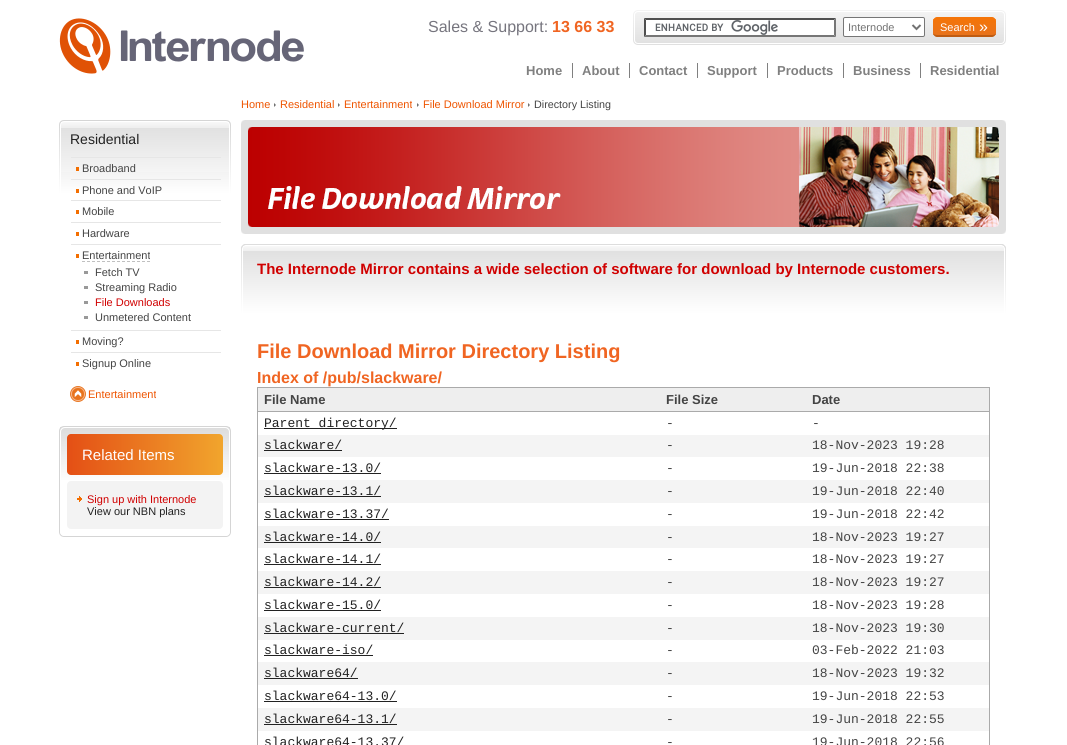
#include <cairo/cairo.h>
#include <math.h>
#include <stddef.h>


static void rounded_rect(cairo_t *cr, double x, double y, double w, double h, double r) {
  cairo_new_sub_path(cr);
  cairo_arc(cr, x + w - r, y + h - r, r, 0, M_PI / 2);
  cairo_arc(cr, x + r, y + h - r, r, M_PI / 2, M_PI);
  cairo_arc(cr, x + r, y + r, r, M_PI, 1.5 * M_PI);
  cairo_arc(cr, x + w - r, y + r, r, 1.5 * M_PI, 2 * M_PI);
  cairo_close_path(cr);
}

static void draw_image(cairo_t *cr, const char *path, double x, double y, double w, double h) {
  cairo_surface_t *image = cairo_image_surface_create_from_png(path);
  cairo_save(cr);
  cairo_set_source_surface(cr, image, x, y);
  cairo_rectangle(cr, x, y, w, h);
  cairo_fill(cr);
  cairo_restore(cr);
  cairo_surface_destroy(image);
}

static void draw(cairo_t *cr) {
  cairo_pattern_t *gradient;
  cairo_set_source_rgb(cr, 1, 1, 1);
  cairo_paint(cr);
  draw_image(cr, "images/1.png", 59, 18, 245, 56);
  gradient = cairo_pattern_create_linear(820, 10, 820, 45);
  cairo_pattern_add_color_stop_rgba(gradient, 0, 244 / 255.0, 244 / 255.0, 244 / 255.0, 1);
  cairo_pattern_add_color_stop_rgba(gradient, 1, 224 / 255.0, 224 / 255.0, 224 / 255.0, 1);
  cairo_set_source(cr, gradient);
  cairo_pattern_destroy(gradient);
  rounded_rect(cr, 633, 10, 373, 35, 5);
  cairo_fill(cr);
  rounded_rect(cr, 634.5, 11.5, 370, 32, 3.5);
  cairo_set_source_rgb(cr, 1, 1, 1);
  cairo_set_line_width(cr, 1);
  cairo_stroke(cr);
  cairo_rectangle(cr, 644, 18, 192, 19);
  cairo_fill(cr);
  draw_image(cr, "images/2.png", 655, 20, 123, 15);
  cairo_set_source_rgb(cr, 79 / 255.0, 79 / 255.0, 79 / 255.0);
  cairo_new_path(cr);
  cairo_move_to(cr, 644, 18);
  cairo_line_to(cr, 836, 18);
  cairo_line_to(cr, 834, 20);
  cairo_line_to(cr, 646, 20);
  cairo_close_path(cr);
  cairo_fill(cr);
  cairo_set_source_rgb(cr, 118 / 255.0, 118 / 255.0, 118 / 255.0);
  cairo_new_path(cr);
  cairo_move_to(cr, 836, 18);
  cairo_line_to(cr, 836, 37);
  cairo_line_to(cr, 834, 35);
  cairo_line_to(cr, 834, 20);
  cairo_close_path(cr);
  cairo_fill(cr);
  cairo_new_path(cr);
  cairo_move_to(cr, 836, 37);
  cairo_line_to(cr, 644, 37);
  cairo_line_to(cr, 646, 35);
  cairo_line_to(cr, 834, 35);
  cairo_close_path(cr);
  cairo_fill(cr);
  cairo_set_source_rgb(cr, 79 / 255.0, 79 / 255.0, 79 / 255.0);
  cairo_new_path(cr);
  cairo_move_to(cr, 644, 37);
  cairo_line_to(cr, 644, 18);
  cairo_line_to(cr, 646, 20);
  cairo_line_to(cr, 646, 35);
  cairo_close_path(cr);
  cairo_fill(cr);
  cairo_set_source_rgb(cr, 1, 1, 1);
  rounded_rect(cr, 843.5, 17.5, 81, 19, 1.5);
  cairo_fill_preserve(cr);
  cairo_set_source_rgb(cr, 118 / 255.0, 118 / 255.0, 118 / 255.0);
  cairo_stroke(cr);
  cairo_new_path(cr);
  cairo_move_to(cr, 912.5, 25);
  cairo_line_to(cr, 916.5, 29);
  cairo_line_to(cr, 920.5, 25);
  cairo_set_source_rgb(cr, 114 / 255.0, 114 / 255.0, 114 / 255.0);
  cairo_set_line_width(cr, 2);
  cairo_stroke(cr);
  cairo_save(cr);
  rounded_rect(cr, 933, 17, 63, 20, 4);
  cairo_clip(cr);
  gradient = cairo_pattern_create_linear(965, 19, 965, 35);
  cairo_pattern_add_color_stop_rgba(gradient, 0, 244 / 255.0, 116 / 255.0, 8 / 255.0, 1);
  cairo_pattern_add_color_stop_rgba(gradient, 1, 232 / 255.0, 115 / 255.0, 28 / 255.0, 1);
  cairo_set_source(cr, gradient);
  cairo_pattern_destroy(gradient);
  cairo_rectangle(cr, 933, 19, 63, 16);
  cairo_fill(cr);
  cairo_restore(cr);
  cairo_set_source_rgb(cr, 244 / 255.0, 116 / 255.0, 8 / 255.0);
  cairo_new_path(cr);
  cairo_move_to(cr, 937, 17);
  cairo_curve_to(cr, 935, 17, 933, 19, 933, 21);
  cairo_curve_to(cr, 933, 20, 935, 19, 937, 19);
  cairo_line_to(cr, 992, 19);
  cairo_curve_to(cr, 994, 19, 996, 20, 996, 21);
  cairo_curve_to(cr, 996, 19, 994, 17, 992, 17);
  cairo_close_path(cr);
  cairo_fill(cr);
  cairo_set_source_rgb(cr, 190 / 255.0, 92 / 255.0, 19 / 255.0);
  cairo_new_path(cr);
  cairo_move_to(cr, 992, 37);
  cairo_curve_to(cr, 994, 37, 996, 35, 996, 33);
  cairo_curve_to(cr, 996, 34, 994, 35, 992, 35);
  cairo_line_to(cr, 937, 35);
  cairo_curve_to(cr, 935, 35, 933, 34, 933, 33);
  cairo_curve_to(cr, 933, 35, 935, 37, 937, 37);
  cairo_close_path(cr);
  cairo_fill(cr);
  cairo_set_source_rgb(cr, 128 / 255.0, 128 / 255.0, 128 / 255.0);
  cairo_rectangle(cr, 572, 63, 1, 15);
  cairo_fill(cr);
  cairo_rectangle(cr, 629, 63, 1, 15);
  cairo_fill(cr);
  cairo_rectangle(cr, 697, 63, 1, 15);
  cairo_fill(cr);
  cairo_rectangle(cr, 767, 63, 1, 15);
  cairo_fill(cr);
  cairo_rectangle(cr, 843, 63, 1, 15);
  cairo_fill(cr);
  cairo_rectangle(cr, 920, 63, 1, 15);
  cairo_fill(cr);
  gradient = cairo_pattern_create_linear(145, 120, 145, 195);
  cairo_pattern_add_color_stop_rgba(gradient, 0, 213 / 255.0, 213 / 255.0, 213 / 255.0, 1);
  cairo_pattern_add_color_stop_rgba(gradient, 0.98, 1, 1, 1, 1);
  cairo_pattern_add_color_stop_rgba(gradient, 1, 1, 1, 1, 1);
  cairo_set_source(cr, gradient);
  cairo_pattern_destroy(gradient);
  cairo_new_path(cr);
  cairo_move_to(cr, 64, 120);
  cairo_line_to(cr, 226, 120);
  cairo_curve_to(cr, 229, 120, 231, 122, 231, 125);
  cairo_line_to(cr, 231, 195);
  cairo_line_to(cr, 59, 195);
  cairo_line_to(cr, 59, 125);
  cairo_curve_to(cr, 59, 122, 61, 120, 64, 120);
  cairo_close_path(cr);
  cairo_fill(cr);
  gradient = cairo_pattern_create_linear(145, 122, 145, 196);
  cairo_pattern_add_color_stop_rgba(gradient, 0, 248 / 255.0, 248 / 255.0, 248 / 255.0, 1);
  cairo_pattern_add_color_stop_rgba(gradient, 0.08, 238 / 255.0, 238 / 255.0, 238 / 255.0, 1);
  cairo_pattern_add_color_stop_rgba(gradient, 0.08, 225 / 255.0, 225 / 255.0, 225 / 255.0, 1);
  cairo_pattern_add_color_stop_rgba(gradient, 0.98, 1, 1, 1, 1);
  cairo_pattern_add_color_stop_rgba(gradient, 1, 1, 1, 1, 1);
  cairo_set_source(cr, gradient);
  cairo_pattern_destroy(gradient);
  cairo_rectangle(cr, 61, 122, 168, 50);
  cairo_fill(cr);
  rounded_rect(cr, 60.5, 121.5, 169, 293, 3.5);
  cairo_set_source_rgb(cr, 1, 1, 1);
  cairo_set_line_width(cr, 1);
  cairo_stroke(cr);
  cairo_set_source_rgb(cr, 243 / 255.0, 110 / 255.0, 0);
  cairo_rectangle(cr, 76, 167, 3, 4);
  cairo_fill(cr);
  cairo_set_source_rgb(cr, 230 / 255.0, 230 / 255.0, 230 / 255.0);
  cairo_rectangle(cr, 71, 157, 150, 1);
  cairo_fill(cr);
  cairo_set_source_rgb(cr, 243 / 255.0, 110 / 255.0, 0);
  cairo_rectangle(cr, 76, 189, 3, 4);
  cairo_fill(cr);
  cairo_set_source_rgb(cr, 230 / 255.0, 230 / 255.0, 230 / 255.0);
  cairo_rectangle(cr, 71, 179, 150, 1);
  cairo_fill(cr);
  cairo_set_source_rgb(cr, 243 / 255.0, 110 / 255.0, 0);
  cairo_rectangle(cr, 76, 210, 3, 4);
  cairo_fill(cr);
  cairo_set_source_rgb(cr, 230 / 255.0, 230 / 255.0, 230 / 255.0);
  cairo_rectangle(cr, 71, 200, 150, 1);
  cairo_fill(cr);
  cairo_set_source_rgb(cr, 243 / 255.0, 110 / 255.0, 0);
  cairo_rectangle(cr, 76, 232, 3, 4);
  cairo_fill(cr);
  cairo_set_source_rgb(cr, 230 / 255.0, 230 / 255.0, 230 / 255.0);
  cairo_rectangle(cr, 71, 222, 150, 1);
  cairo_fill(cr);
  cairo_set_source_rgb(cr, 243 / 255.0, 110 / 255.0, 0);
  cairo_rectangle(cr, 76, 254, 3, 4);
  cairo_fill(cr);
  cairo_set_source_rgb(cr, 230 / 255.0, 230 / 255.0, 230 / 255.0);
  cairo_rectangle(cr, 71, 244, 150, 1);
  cairo_fill(cr);
  cairo_new_path(cr);
  cairo_move_to(cr, 82, 261.5);
  cairo_line_to(cr, 150, 261.5);
  cairo_set_source_rgb(cr, 192 / 255.0, 192 / 255.0, 192 / 255.0);
  cairo_set_dash(cr, (double[]){3, 2}, 2, 0);
  cairo_stroke(cr);
  cairo_set_source_rgb(cr, 153 / 255.0, 153 / 255.0, 153 / 255.0);
  cairo_rectangle(cr, 84, 271, 4, 3);
  cairo_fill(cr);
  cairo_rectangle(cr, 84, 286, 4, 3);
  cairo_fill(cr);
  cairo_rectangle(cr, 84, 301, 4, 3);
  cairo_fill(cr);
  cairo_rectangle(cr, 84, 316, 4, 3);
  cairo_fill(cr);
  cairo_set_source_rgb(cr, 243 / 255.0, 110 / 255.0, 0);
  cairo_rectangle(cr, 76, 340, 3, 4);
  cairo_fill(cr);
  cairo_set_source_rgb(cr, 230 / 255.0, 230 / 255.0, 230 / 255.0);
  cairo_rectangle(cr, 71, 330, 150, 1);
  cairo_fill(cr);
  cairo_set_source_rgb(cr, 243 / 255.0, 110 / 255.0, 0);
  cairo_rectangle(cr, 76, 362, 3, 4);
  cairo_fill(cr);
  cairo_set_source_rgb(cr, 230 / 255.0, 230 / 255.0, 230 / 255.0);
  cairo_rectangle(cr, 71, 352, 150, 1);
  cairo_fill(cr);
  draw_image(cr, "images/3.png", 70, 386, 16, 16);
  gradient = cairo_pattern_create_linear(145, 427, 145, 484);
  cairo_pattern_add_color_stop_rgba(gradient, 0, 220 / 255.0, 220 / 255.0, 220 / 255.0, 1);
  cairo_pattern_add_color_stop_rgba(gradient, 1, 1, 1, 1, 1);
  cairo_set_source(cr, gradient);
  cairo_pattern_destroy(gradient);
  cairo_rectangle(cr, 60, 427, 170, 53);
  cairo_fill(cr);
  rounded_rect(cr, 59.5, 426.5, 171, 110, 4.5);
  cairo_set_source_rgb(cr, 213 / 255.0, 213 / 255.0, 213 / 255.0);
  cairo_set_dash(cr, NULL, 0, 0);
  cairo_stroke(cr);
  rounded_rect(cr, 60.5, 427.5, 169, 108, 4.5);
  cairo_set_source_rgb(cr, 1, 1, 1);
  cairo_stroke(cr);
  gradient = cairo_pattern_create_linear(67, 455, 223, 455);
  cairo_pattern_add_color_stop_rgba(gradient, 0, 228 / 255.0, 79 / 255.0, 21 / 255.0, 1);
  cairo_pattern_add_color_stop_rgba(gradient, 1, 241 / 255.0, 165 / 255.0, 45 / 255.0, 1);
  cairo_set_source(cr, gradient);
  cairo_pattern_destroy(gradient);
  rounded_rect(cr, 67, 434, 156, 41, 4);
  cairo_fill(cr);
  cairo_set_source_rgb(cr, 243 / 255.0, 243 / 255.0, 243 / 255.0);
  rounded_rect(cr, 67, 481, 156, 48, 4);
  cairo_fill(cr);
  draw_image(cr, "images/4.png", 77, 496, 5, 6);
  cairo_set_source_rgb(cr, 113 / 255.0, 113 / 255.0, 113 / 255.0);
  cairo_new_path(cr);
  cairo_move_to(cr, 276, 105);
  cairo_line_to(cr, 274, 103);
  cairo_line_to(cr, 274, 107);
  cairo_close_path(cr);
  cairo_fill(cr);
  cairo_new_path(cr);
  cairo_move_to(cr, 340, 105);
  cairo_line_to(cr, 338, 103);
  cairo_line_to(cr, 338, 107);
  cairo_close_path(cr);
  cairo_fill(cr);
  cairo_new_path(cr);
  cairo_move_to(cr, 419, 105);
  cairo_line_to(cr, 417, 103);
  cairo_line_to(cr, 417, 107);
  cairo_close_path(cr);
  cairo_fill(cr);
  cairo_new_path(cr);
  cairo_move_to(cr, 530, 105);
  cairo_line_to(cr, 528, 103);
  cairo_line_to(cr, 528, 107);
  cairo_close_path(cr);
  cairo_fill(cr);
  draw_image(cr, "images/5.png", 241, 120, 765, 114);
  cairo_save(cr);
  rounded_rect(cr, 240, 243, 767, 75, 8);
  cairo_clip(cr);
  gradient = cairo_pattern_create_linear(624, 244, 624, 315);
  cairo_pattern_add_color_stop_rgba(gradient, 0, 221 / 255.0, 221 / 255.0, 221 / 255.0, 1);
  cairo_pattern_add_color_stop_rgba(gradient, 0.98, 1, 1, 1, 1);
  cairo_pattern_add_color_stop_rgba(gradient, 1, 1, 1, 1, 1);
  cairo_set_source(cr, gradient);
  cairo_pattern_destroy(gradient);
  cairo_rectangle(cr, 241, 244, 765, 71);
  cairo_fill(cr);
  cairo_restore(cr);
  gradient = cairo_pattern_create_linear(624, 246, 624, 314);
  cairo_pattern_add_color_stop_rgba(gradient, 0, 248 / 255.0, 248 / 255.0, 248 / 255.0, 1);
  cairo_pattern_add_color_stop_rgba(gradient, 0.08, 238 / 255.0, 238 / 255.0, 238 / 255.0, 1);
  cairo_pattern_add_color_stop_rgba(gradient, 0.08, 225 / 255.0, 225 / 255.0, 225 / 255.0, 1);
  cairo_pattern_add_color_stop_rgba(gradient, 0.98, 1, 1, 1, 1);
  cairo_pattern_add_color_stop_rgba(gradient, 1, 1, 1, 1, 1);
  cairo_set_source(cr, gradient);
  cairo_pattern_destroy(gradient);
  cairo_rectangle(cr, 243, 246, 761, 5);
  cairo_fill(cr);
  cairo_set_source_rgb(cr, 1, 1, 1);
  cairo_new_path(cr);
  cairo_move_to(cr, 246, 245);
  cairo_curve_to(cr, 244, 245, 242, 247, 242, 249);
  cairo_line_to(cr, 242, 314);
  cairo_line_to(cr, 243, 315);
  cairo_line_to(cr, 243, 249);
  cairo_curve_to(cr, 243, 247, 244, 246, 246, 246);
  cairo_line_to(cr, 1001, 246);
  cairo_curve_to(cr, 1003, 246, 1004, 247, 1004, 249);
  cairo_line_to(cr, 1004, 315);
  cairo_line_to(cr, 1005, 314);
  cairo_line_to(cr, 1005, 249);
  cairo_curve_to(cr, 1005, 247, 1003, 245, 1001, 245);
  cairo_close_path(cr);
  cairo_fill(cr);
  cairo_set_source_rgb(cr, 170 / 255.0, 170 / 255.0, 170 / 255.0);
  cairo_rectangle(cr, 257, 387, 733, 1);
  cairo_fill(cr);
  cairo_rectangle(cr, 989, 387, 1, 358);
  cairo_fill(cr);
  cairo_rectangle(cr, 257, 387, 1, 358);
  cairo_fill(cr);
  cairo_set_source_rgb(cr, 238 / 255.0, 238 / 255.0, 238 / 255.0);
  cairo_rectangle(cr, 258, 388, 731, 23);
  cairo_fill(cr);
  cairo_set_source_rgb(cr, 170 / 255.0, 170 / 255.0, 170 / 255.0);
  cairo_rectangle(cr, 257, 411, 733, 1);
  cairo_fill(cr);
  cairo_set_source_rgb(cr, 34 / 255.0, 34 / 255.0, 34 / 255.0);
  cairo_rectangle(cr, 264, 428, 133, 1);
  cairo_fill(cr);
  cairo_set_source_rgb(cr, 244 / 255.0, 244 / 255.0, 244 / 255.0);
  cairo_rectangle(cr, 258, 435, 731, 22);
  cairo_fill(cr);
  cairo_set_source_rgb(cr, 34 / 255.0, 34 / 255.0, 34 / 255.0);
  cairo_rectangle(cr, 264, 450, 78, 1);
  cairo_fill(cr);
  cairo_rectangle(cr, 264, 473, 117, 1);
  cairo_fill(cr);
  cairo_set_source_rgb(cr, 244 / 255.0, 244 / 255.0, 244 / 255.0);
  cairo_rectangle(cr, 258, 480, 731, 23);
  cairo_fill(cr);
  cairo_set_source_rgb(cr, 34 / 255.0, 34 / 255.0, 34 / 255.0);
  cairo_rectangle(cr, 264, 496, 117, 1);
  cairo_fill(cr);
  cairo_rectangle(cr, 264, 519, 125, 1);
  cairo_fill(cr);
  cairo_set_source_rgb(cr, 244 / 255.0, 244 / 255.0, 244 / 255.0);
  cairo_rectangle(cr, 258, 526, 731, 22);
  cairo_fill(cr);
  cairo_set_source_rgb(cr, 34 / 255.0, 34 / 255.0, 34 / 255.0);
  cairo_rectangle(cr, 264, 542, 117, 1);
  cairo_fill(cr);
  cairo_rectangle(cr, 264, 564, 117, 1);
  cairo_fill(cr);
  cairo_set_source_rgb(cr, 244 / 255.0, 244 / 255.0, 244 / 255.0);
  cairo_rectangle(cr, 258, 571, 731, 23);
  cairo_fill(cr);
  cairo_set_source_rgb(cr, 34 / 255.0, 34 / 255.0, 34 / 255.0);
  cairo_rectangle(cr, 264, 587, 117, 1);
  cairo_fill(cr);
  cairo_rectangle(cr, 264, 610, 117, 1);
  cairo_fill(cr);
  cairo_set_source_rgb(cr, 244 / 255.0, 244 / 255.0, 244 / 255.0);
  cairo_rectangle(cr, 258, 617, 731, 23);
  cairo_fill(cr);
  cairo_set_source_rgb(cr, 34 / 255.0, 34 / 255.0, 34 / 255.0);
  cairo_rectangle(cr, 264, 633, 140, 1);
  cairo_fill(cr);
  cairo_rectangle(cr, 264, 655, 109, 1);
  cairo_fill(cr);
  cairo_set_source_rgb(cr, 244 / 255.0, 244 / 255.0, 244 / 255.0);
  cairo_rectangle(cr, 258, 662, 731, 23);
  cairo_fill(cr);
  cairo_set_source_rgb(cr, 34 / 255.0, 34 / 255.0, 34 / 255.0);
  cairo_rectangle(cr, 264, 678, 94, 1);
  cairo_fill(cr);
  cairo_rectangle(cr, 264, 701, 133, 1);
  cairo_fill(cr);
  cairo_set_source_rgb(cr, 244 / 255.0, 244 / 255.0, 244 / 255.0);
  cairo_rectangle(cr, 258, 708, 731, 23);
  cairo_fill(cr);
  cairo_set_source_rgb(cr, 34 / 255.0, 34 / 255.0, 34 / 255.0);
  cairo_rectangle(cr, 264, 724, 133, 1);
  cairo_fill(cr);
  cairo_select_font_face(cr, "Liberation Sans", CAIRO_FONT_SLANT_NORMAL, CAIRO_FONT_WEIGHT_NORMAL);
  cairo_set_font_size(cr, 16);
  cairo_set_source_rgb(cr, 118 / 255.0, 117 / 255.0, 126 / 255.0);
  cairo_move_to(cr, 428, 32);
  cairo_show_text(cr, "Sales & Support:");
  cairo_select_font_face(cr, "Liberation Sans", CAIRO_FONT_SLANT_NORMAL, CAIRO_FONT_WEIGHT_BOLD);
  cairo_set_source_rgb(cr, 240 / 255.0, 101 / 255.0, 34 / 255.0);
  cairo_move_to(cr, 552, 32);
  cairo_show_text(cr, "13 66 33");
  cairo_select_font_face(cr, "Liberation Sans", CAIRO_FONT_SLANT_NORMAL, CAIRO_FONT_WEIGHT_NORMAL);
  cairo_set_font_size(cr, 11);
  cairo_set_source_rgb(cr, 114 / 255.0, 114 / 255.0, 114 / 255.0);
  cairo_move_to(cr, 848, 31);
  cairo_show_text(cr, "Internode");
  cairo_set_source_rgb(cr, 1, 1, 1);
  cairo_move_to(cr, 940, 31);
  cairo_show_text(cr, "Search");
  cairo_set_font_size(cr, 16);
  cairo_move_to(cr, 979, 32);
  cairo_show_text(cr, "»");
  cairo_select_font_face(cr, "Liberation Sans", CAIRO_FONT_SLANT_NORMAL, CAIRO_FONT_WEIGHT_BOLD);
  cairo_set_font_size(cr, 13);
  cairo_set_source_rgb(cr, 128 / 255.0, 128 / 255.0, 128 / 255.0);
  cairo_move_to(cr, 526, 75);
  cairo_show_text(cr, "Home");
  cairo_move_to(cr, 582, 75);
  cairo_show_text(cr, "About");
  cairo_move_to(cr, 639, 75);
  cairo_show_text(cr, "Contact");
  cairo_move_to(cr, 707, 75);
  cairo_show_text(cr, "Support");
  cairo_move_to(cr, 777, 75);
  cairo_show_text(cr, "Products");
  cairo_move_to(cr, 853, 75);
  cairo_show_text(cr, "Business");
  cairo_move_to(cr, 930, 75);
  cairo_show_text(cr, "Residential");
  cairo_select_font_face(cr, "Liberation Sans", CAIRO_FONT_SLANT_NORMAL, CAIRO_FONT_WEIGHT_NORMAL);
  cairo_set_font_size(cr, 14);
  cairo_set_source_rgb(cr, 34 / 255.0, 34 / 255.0, 34 / 255.0);
  cairo_move_to(cr, 70, 144);
  cairo_show_text(cr, "Residential");
  cairo_set_font_size(cr, 11);
  cairo_set_source_rgb(cr, 68 / 255.0, 68 / 255.0, 68 / 255.0);
  cairo_move_to(cr, 82, 172);
  cairo_show_text(cr, "Broadband");
  cairo_move_to(cr, 82, 194);
  cairo_show_text(cr, "Phone and VoIP");
  cairo_move_to(cr, 82, 215);
  cairo_show_text(cr, "Mobile");
  cairo_move_to(cr, 82, 237);
  cairo_show_text(cr, "Hardware");
  cairo_move_to(cr, 82, 259);
  cairo_show_text(cr, "Entertainment");
  cairo_move_to(cr, 95, 276);
  cairo_show_text(cr, "Fetch TV");
  cairo_move_to(cr, 95, 291);
  cairo_show_text(cr, "Streaming Radio");
  cairo_set_source_rgb(cr, 208 / 255.0, 0, 0);
  cairo_move_to(cr, 95, 306);
  cairo_show_text(cr, "File Downloads");
  cairo_set_source_rgb(cr, 68 / 255.0, 68 / 255.0, 68 / 255.0);
  cairo_move_to(cr, 95, 321);
  cairo_show_text(cr, "Unmetered Content");
  cairo_move_to(cr, 82, 345);
  cairo_show_text(cr, "Moving?");
  cairo_move_to(cr, 82, 367);
  cairo_show_text(cr, "Signup Online");
  cairo_set_source_rgb(cr, 238 / 255.0, 84 / 255.0, 0);
  cairo_move_to(cr, 88, 398);
  cairo_show_text(cr, "Entertainment");
  cairo_set_font_size(cr, 15);
  cairo_set_source_rgb(cr, 1, 1, 1);
  cairo_move_to(cr, 82, 460);
  cairo_show_text(cr, "Related Items");
  cairo_set_font_size(cr, 11);
  cairo_set_source_rgb(cr, 208 / 255.0, 0, 0);
  cairo_move_to(cr, 87, 503);
  cairo_show_text(cr, "Sign up with Internode");
  cairo_set_source_rgb(cr, 34 / 255.0, 34 / 255.0, 34 / 255.0);
  cairo_move_to(cr, 87, 515);
  cairo_show_text(cr, "View our NBN plans");
  cairo_set_source_rgb(cr, 238 / 255.0, 84 / 255.0, 0);
  cairo_move_to(cr, 241, 108);
  cairo_show_text(cr, "Home");
  cairo_move_to(cr, 280, 108);
  cairo_show_text(cr, "Residential");
  cairo_move_to(cr, 344, 108);
  cairo_show_text(cr, "Entertainment");
  cairo_move_to(cr, 423, 108);
  cairo_show_text(cr, "File Download Mirror");
  cairo_set_font_size(cr, 10.75);
  cairo_set_source_rgb(cr, 68 / 255.0, 68 / 255.0, 68 / 255.0);
  cairo_move_to(cr, 534, 108);
  cairo_show_text(cr, "Directory Listing");
  cairo_select_font_face(cr, "Liberation Sans", CAIRO_FONT_SLANT_NORMAL, CAIRO_FONT_WEIGHT_BOLD);
  cairo_set_font_size(cr, 15);
  cairo_set_source_rgb(cr, 208 / 255.0, 0, 0);
  cairo_move_to(cr, 257, 274);
  cairo_show_text(cr, "The Internode Mirror contains a wide selection of software for download by Internode customers.");
  cairo_set_font_size(cr, 20);
  cairo_set_source_rgb(cr, 240 / 255.0, 101 / 255.0, 34 / 255.0);
  cairo_move_to(cr, 257, 358);
  cairo_show_text(cr, "File Download Mirror Directory Listing");
  cairo_set_font_size(cr, 16);
  cairo_move_to(cr, 257, 383);
  cairo_show_text(cr, "Index of /pub/slackware/");
  cairo_set_font_size(cr, 13);
  cairo_set_source_rgb(cr, 68 / 255.0, 68 / 255.0, 68 / 255.0);
  cairo_move_to(cr, 264, 404);
  cairo_show_text(cr, "File Name");
  cairo_move_to(cr, 666, 404);
  cairo_show_text(cr, "File Size");
  cairo_move_to(cr, 812, 404);
  cairo_show_text(cr, "Date");
  cairo_select_font_face(cr, "Liberation Mono", CAIRO_FONT_SLANT_NORMAL, CAIRO_FONT_WEIGHT_NORMAL);
  cairo_set_source_rgb(cr, 34 / 255.0, 34 / 255.0, 34 / 255.0);
  cairo_move_to(cr, 264, 427);
  cairo_show_text(cr, "Parent directory/");
  cairo_set_source_rgb(cr, 68 / 255.0, 68 / 255.0, 68 / 255.0);
  cairo_move_to(cr, 666, 427);
  cairo_show_text(cr, "-");
  cairo_move_to(cr, 812, 427);
  cairo_show_text(cr, "-");
  cairo_set_source_rgb(cr, 34 / 255.0, 34 / 255.0, 34 / 255.0);
  cairo_move_to(cr, 264, 449);
  cairo_show_text(cr, "slackware/");
  cairo_set_source_rgb(cr, 68 / 255.0, 68 / 255.0, 68 / 255.0);
  cairo_move_to(cr, 666, 449);
  cairo_show_text(cr, "-");
  cairo_move_to(cr, 812, 449);
  cairo_show_text(cr, "18-Nov-2023 19:28");
  cairo_set_source_rgb(cr, 34 / 255.0, 34 / 255.0, 34 / 255.0);
  cairo_move_to(cr, 264, 472);
  cairo_show_text(cr, "slackware-13.0/");
  cairo_set_source_rgb(cr, 68 / 255.0, 68 / 255.0, 68 / 255.0);
  cairo_move_to(cr, 666, 472);
  cairo_show_text(cr, "-");
  cairo_move_to(cr, 812, 472);
  cairo_show_text(cr, "19-Jun-2018 22:38");
  cairo_set_source_rgb(cr, 34 / 255.0, 34 / 255.0, 34 / 255.0);
  cairo_move_to(cr, 264, 495);
  cairo_show_text(cr, "slackware-13.1/");
  cairo_set_source_rgb(cr, 68 / 255.0, 68 / 255.0, 68 / 255.0);
  cairo_move_to(cr, 666, 495);
  cairo_show_text(cr, "-");
  cairo_move_to(cr, 812, 495);
  cairo_show_text(cr, "19-Jun-2018 22:40");
  cairo_set_source_rgb(cr, 34 / 255.0, 34 / 255.0, 34 / 255.0);
  cairo_move_to(cr, 264, 518);
  cairo_show_text(cr, "slackware-13.37/");
  cairo_set_source_rgb(cr, 68 / 255.0, 68 / 255.0, 68 / 255.0);
  cairo_move_to(cr, 666, 518);
  cairo_show_text(cr, "-");
  cairo_move_to(cr, 812, 518);
  cairo_show_text(cr, "19-Jun-2018 22:42");
  cairo_set_source_rgb(cr, 34 / 255.0, 34 / 255.0, 34 / 255.0);
  cairo_move_to(cr, 264, 541);
  cairo_show_text(cr, "slackware-14.0/");
  cairo_set_source_rgb(cr, 68 / 255.0, 68 / 255.0, 68 / 255.0);
  cairo_move_to(cr, 666, 541);
  cairo_show_text(cr, "-");
  cairo_move_to(cr, 812, 541);
  cairo_show_text(cr, "18-Nov-2023 19:27");
  cairo_set_source_rgb(cr, 34 / 255.0, 34 / 255.0, 34 / 255.0);
  cairo_move_to(cr, 264, 563);
  cairo_show_text(cr, "slackware-14.1/");
  cairo_set_source_rgb(cr, 68 / 255.0, 68 / 255.0, 68 / 255.0);
  cairo_move_to(cr, 666, 563);
  cairo_show_text(cr, "-");
  cairo_move_to(cr, 812, 563);
  cairo_show_text(cr, "18-Nov-2023 19:27");
  cairo_set_source_rgb(cr, 34 / 255.0, 34 / 255.0, 34 / 255.0);
  cairo_move_to(cr, 264, 586);
  cairo_show_text(cr, "slackware-14.2/");
  cairo_set_source_rgb(cr, 68 / 255.0, 68 / 255.0, 68 / 255.0);
  cairo_move_to(cr, 666, 586);
  cairo_show_text(cr, "-");
  cairo_move_to(cr, 812, 586);
  cairo_show_text(cr, "18-Nov-2023 19:27");
  cairo_set_source_rgb(cr, 34 / 255.0, 34 / 255.0, 34 / 255.0);
  cairo_move_to(cr, 264, 609);
  cairo_show_text(cr, "slackware-15.0/");
  cairo_set_source_rgb(cr, 68 / 255.0, 68 / 255.0, 68 / 255.0);
  cairo_move_to(cr, 666, 609);
  cairo_show_text(cr, "-");
  cairo_move_to(cr, 812, 609);
  cairo_show_text(cr, "18-Nov-2023 19:28");
  cairo_set_source_rgb(cr, 34 / 255.0, 34 / 255.0, 34 / 255.0);
  cairo_move_to(cr, 264, 632);
  cairo_show_text(cr, "slackware-current/");
  cairo_set_source_rgb(cr, 68 / 255.0, 68 / 255.0, 68 / 255.0);
  cairo_move_to(cr, 666, 632);
  cairo_show_text(cr, "-");
  cairo_move_to(cr, 812, 632);
  cairo_show_text(cr, "18-Nov-2023 19:30");
  cairo_set_source_rgb(cr, 34 / 255.0, 34 / 255.0, 34 / 255.0);
  cairo_move_to(cr, 264, 654);
  cairo_show_text(cr, "slackware-iso/");
  cairo_set_source_rgb(cr, 68 / 255.0, 68 / 255.0, 68 / 255.0);
  cairo_move_to(cr, 666, 654);
  cairo_show_text(cr, "-");
  cairo_move_to(cr, 812, 654);
  cairo_show_text(cr, "03-Feb-2022 21:03");
  cairo_set_source_rgb(cr, 34 / 255.0, 34 / 255.0, 34 / 255.0);
  cairo_move_to(cr, 264, 677);
  cairo_show_text(cr, "slackware64/");
  cairo_set_source_rgb(cr, 68 / 255.0, 68 / 255.0, 68 / 255.0);
  cairo_move_to(cr, 666, 677);
  cairo_show_text(cr, "-");
  cairo_move_to(cr, 812, 677);
  cairo_show_text(cr, "18-Nov-2023 19:32");
  cairo_set_source_rgb(cr, 34 / 255.0, 34 / 255.0, 34 / 255.0);
  cairo_move_to(cr, 264, 700);
  cairo_show_text(cr, "slackware64-13.0/");
  cairo_set_source_rgb(cr, 68 / 255.0, 68 / 255.0, 68 / 255.0);
  cairo_move_to(cr, 666, 700);
  cairo_show_text(cr, "-");
  cairo_move_to(cr, 812, 700);
  cairo_show_text(cr, "19-Jun-2018 22:53");
  cairo_set_source_rgb(cr, 34 / 255.0, 34 / 255.0, 34 / 255.0);
  cairo_move_to(cr, 264, 723);
  cairo_show_text(cr, "slackware64-13.1/");
  cairo_set_source_rgb(cr, 68 / 255.0, 68 / 255.0, 68 / 255.0);
  cairo_move_to(cr, 666, 723);
  cairo_show_text(cr, "-");
  cairo_move_to(cr, 812, 723);
  cairo_show_text(cr, "19-Jun-2018 22:55");
  cairo_set_source_rgb(cr, 34 / 255.0, 34 / 255.0, 34 / 255.0);
  cairo_move_to(cr, 264, 746);
  cairo_show_text(cr, "slackware64-13.37/");
  cairo_set_source_rgb(cr, 68 / 255.0, 68 / 255.0, 68 / 255.0);
  cairo_move_to(cr, 666, 746);
  cairo_show_text(cr, "-");
  cairo_move_to(cr, 812, 746);
  cairo_show_text(cr, "19-Jun-2018 22:56");
}

int main(void) {
  cairo_surface_t *surface = cairo_image_surface_create(CAIRO_FORMAT_RGB24, 1067, 745);
  cairo_t *cr = cairo_create(surface);
  cairo_font_options_t *options = cairo_font_options_create();
  cairo_font_options_set_hint_metrics(options, CAIRO_HINT_METRICS_OFF);
  cairo_font_options_set_hint_style(options, CAIRO_HINT_STYLE_NONE);
  cairo_set_font_options(cr, options);
  cairo_set_miter_limit(cr, 4);
  draw(cr);
  cairo_surface_write_to_png(surface, "out.png");
  cairo_font_options_destroy(options);
  cairo_destroy(cr);
  cairo_surface_destroy(surface);
  return 0;
}
